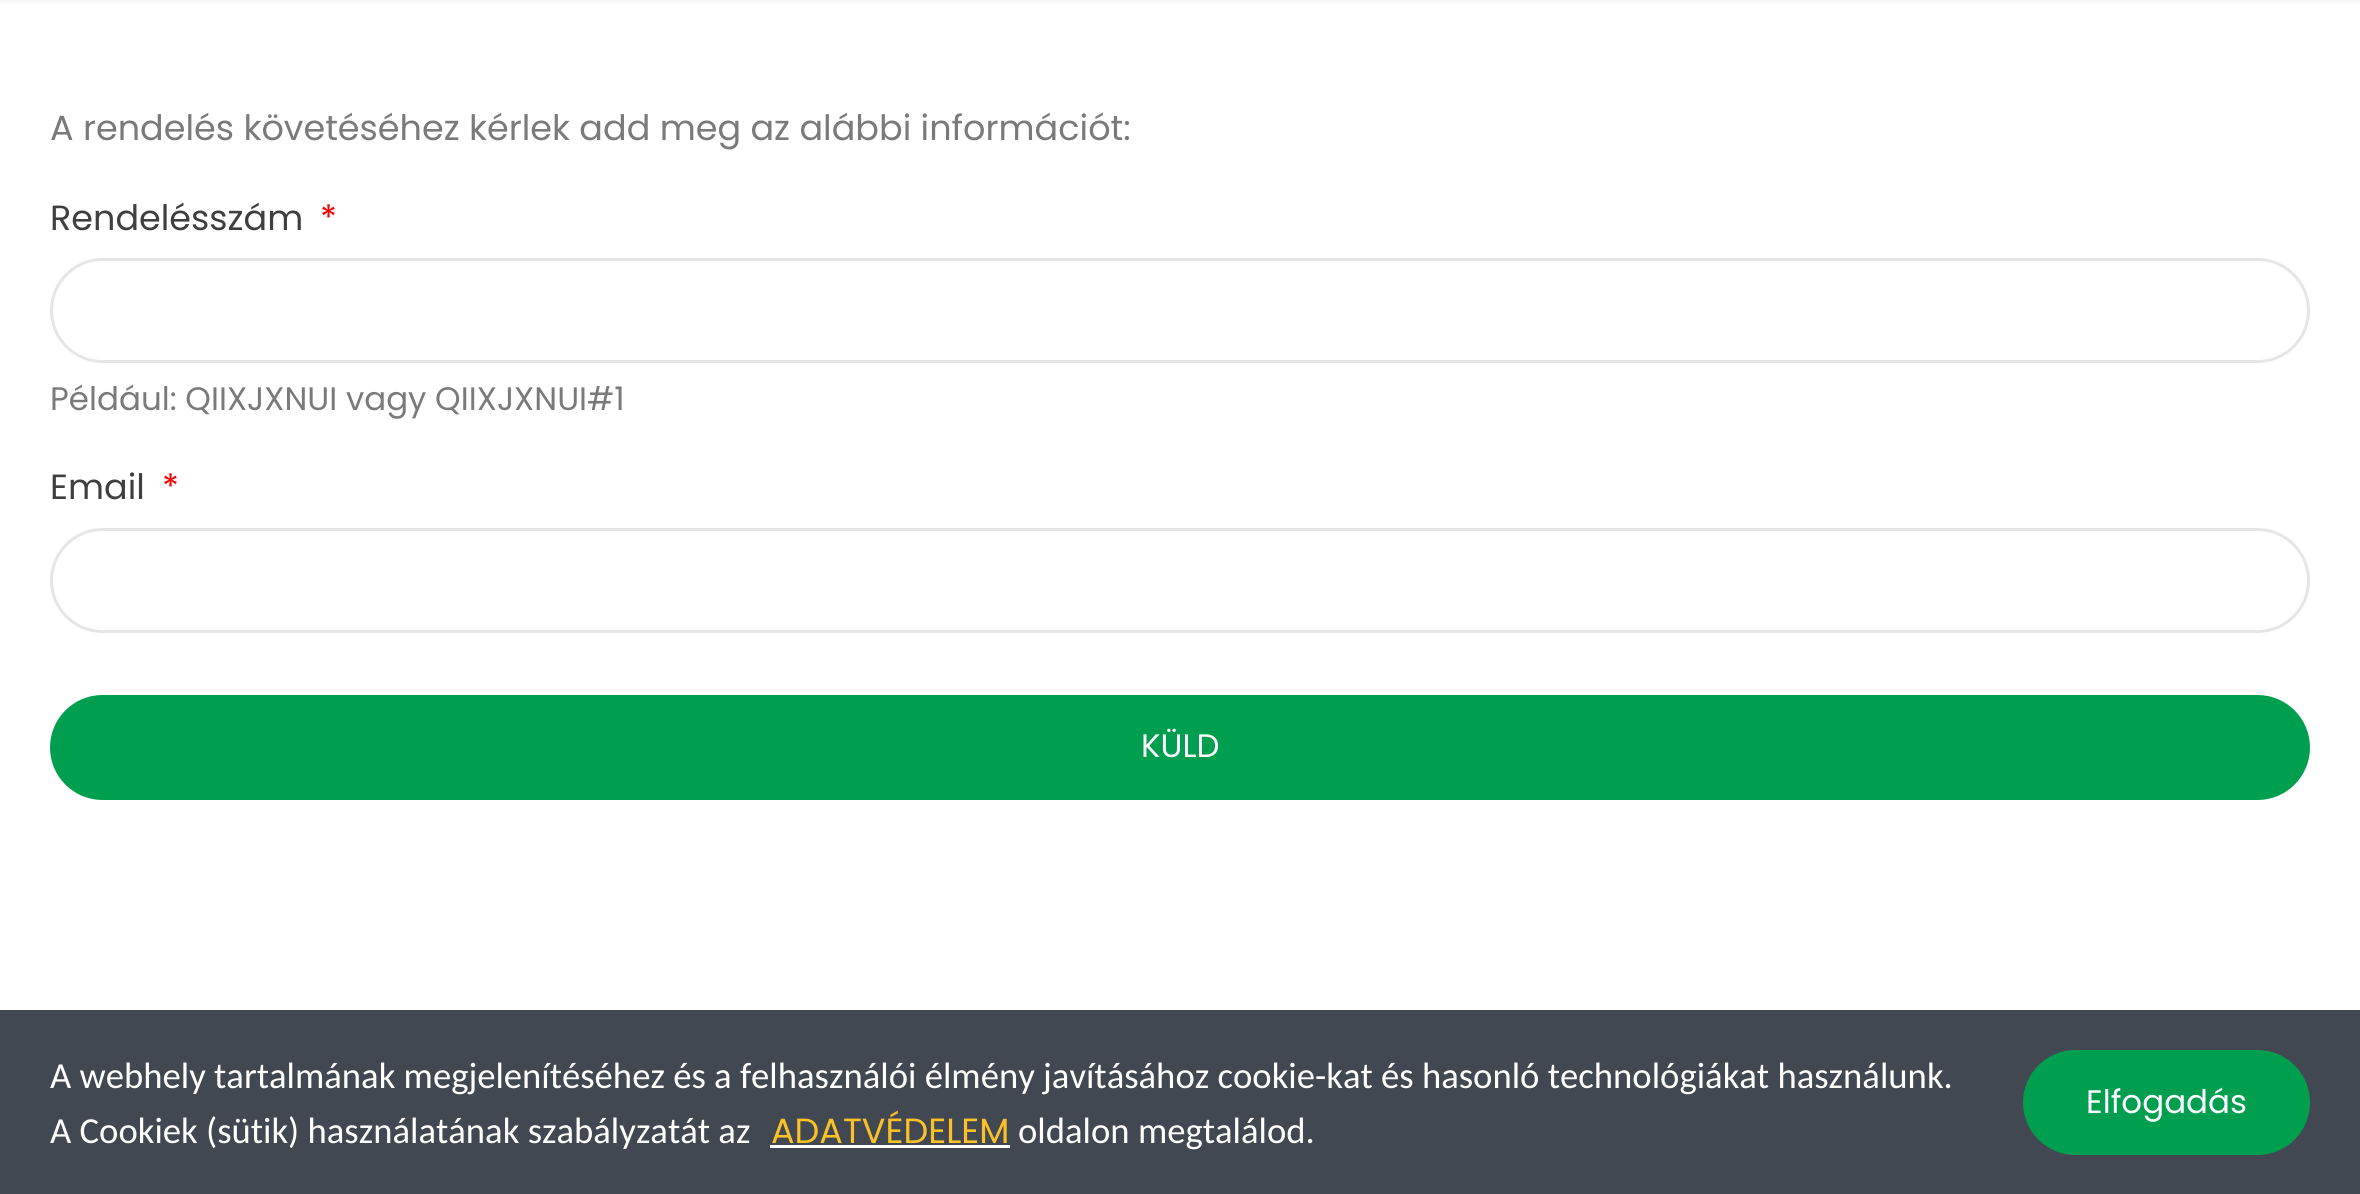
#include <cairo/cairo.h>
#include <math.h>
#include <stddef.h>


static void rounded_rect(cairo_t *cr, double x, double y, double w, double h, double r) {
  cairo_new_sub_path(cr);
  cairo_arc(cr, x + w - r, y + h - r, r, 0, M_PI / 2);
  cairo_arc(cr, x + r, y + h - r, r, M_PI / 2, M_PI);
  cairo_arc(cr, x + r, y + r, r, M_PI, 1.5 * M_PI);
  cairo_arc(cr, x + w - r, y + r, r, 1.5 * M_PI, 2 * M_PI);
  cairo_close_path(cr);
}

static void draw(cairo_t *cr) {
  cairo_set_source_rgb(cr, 1, 1, 1);
  cairo_paint(cr);
  cairo_set_source_rgb(cr, 245 / 255.0, 245 / 255.0, 245 / 255.0);
  cairo_rectangle(cr, 0, 0, 2360, 1);
  cairo_fill(cr);
  cairo_set_source_rgb(cr, 249 / 255.0, 249 / 255.0, 249 / 255.0);
  cairo_rectangle(cr, 0, 1, 2360, 2);
  cairo_fill(cr);
  rounded_rect(cr, 51.5, 259.5, 2257, 102, 51);
  cairo_set_source_rgb(cr, 230 / 255.0, 230 / 255.0, 230 / 255.0);
  cairo_set_line_width(cr, 3);
  cairo_stroke(cr);
  rounded_rect(cr, 51.5, 529.5, 2257, 102, 51);
  cairo_stroke(cr);
  cairo_set_source_rgb(cr, 0, 159 / 255.0, 79 / 255.0);
  rounded_rect(cr, 51.5, 696.5, 2257, 102, 51);
  cairo_fill_preserve(cr);
  cairo_stroke(cr);
  cairo_set_source_rgb(cr, 66 / 255.0, 72 / 255.0, 81 / 255.0);
  cairo_rectangle(cr, 0, 1010, 2360, 184);
  cairo_fill(cr);
  cairo_set_source_rgb(cr, 1, 1, 1);
  cairo_rectangle(cr, 770, 1145, 240, 3);
  cairo_fill(cr);
  cairo_set_source_rgb(cr, 0, 159 / 255.0, 79 / 255.0);
  rounded_rect(cr, 2023, 1050, 287, 105, 52.5);
  cairo_fill(cr);
  cairo_select_font_face(cr, "Poppins", CAIRO_FONT_SLANT_NORMAL, CAIRO_FONT_WEIGHT_NORMAL);
  cairo_set_font_size(cr, 35);
  cairo_set_source_rgb(cr, 122 / 255.0, 122 / 255.0, 122 / 255.0);
  cairo_move_to(cr, 50, 140);
  cairo_show_text(cr, "A rendelés követéséhez kérlek add meg az alábbi információt:");
  cairo_set_source_rgb(cr, 63 / 255.0, 63 / 255.0, 63 / 255.0);
  cairo_move_to(cr, 50, 230);
  cairo_show_text(cr, "Rendelésszám");
  cairo_set_source_rgb(cr, 1, 0, 0);
  cairo_move_to(cr, 320, 230);
  cairo_show_text(cr, "*");
  cairo_set_font_size(cr, 32.5);
  cairo_set_source_rgb(cr, 122 / 255.0, 122 / 255.0, 122 / 255.0);
  cairo_move_to(cr, 50, 410);
  cairo_show_text(cr, "Például: QIIXJXNUI vagy QIIXJXNUI#1");
  cairo_set_font_size(cr, 35);
  cairo_set_source_rgb(cr, 63 / 255.0, 63 / 255.0, 63 / 255.0);
  cairo_move_to(cr, 50, 499);
  cairo_show_text(cr, "Email");
  cairo_set_source_rgb(cr, 1, 0, 0);
  cairo_move_to(cr, 162, 499);
  cairo_show_text(cr, "*");
  cairo_set_font_size(cr, 32.5);
  cairo_set_source_rgb(cr, 1, 1, 1);
  cairo_move_to(cr, 1141, 757);
  cairo_show_text(cr, "KÜLD");
  cairo_select_font_face(cr, "Carlito", CAIRO_FONT_SLANT_NORMAL, CAIRO_FONT_WEIGHT_NORMAL);
  cairo_set_font_size(cr, 36.67);
  cairo_move_to(cr, 50, 1088);
  cairo_show_text(cr, "A webhely tartalmának megjelenítéséhez és a felhasználói élmény javításához cookie-kat és hasonló technológiákat használunk.");
  cairo_move_to(cr, 50, 1143);
  cairo_show_text(cr, "A Cookiek (sütik) használatának szabályzatát az");
  cairo_select_font_face(cr, "Poppins", CAIRO_FONT_SLANT_NORMAL, CAIRO_FONT_WEIGHT_NORMAL);
  cairo_set_font_size(cr, 35);
  cairo_set_source_rgb(cr, 251 / 255.0, 194 / 255.0, 39 / 255.0);
  cairo_move_to(cr, 771, 1143);
  cairo_show_text(cr, "ADATVÉDELEM");
  cairo_select_font_face(cr, "Carlito", CAIRO_FONT_SLANT_NORMAL, CAIRO_FONT_WEIGHT_NORMAL);
  cairo_set_font_size(cr, 36.67);
  cairo_set_source_rgb(cr, 1, 1, 1);
  cairo_move_to(cr, 1018, 1143);
  cairo_show_text(cr, "oldalon megtalálod.");
  cairo_select_font_face(cr, "Poppins", CAIRO_FONT_SLANT_NORMAL, CAIRO_FONT_WEIGHT_NORMAL);
  cairo_set_font_size(cr, 32.5);
  cairo_move_to(cr, 2086, 1113);
  cairo_show_text(cr, "Elfogadás");
}

int main(void) {
  cairo_surface_t *surface = cairo_image_surface_create(CAIRO_FORMAT_RGB24, 2360, 1194);
  cairo_t *cr = cairo_create(surface);
  cairo_font_options_t *options = cairo_font_options_create();
  cairo_font_options_set_hint_metrics(options, CAIRO_HINT_METRICS_OFF);
  cairo_font_options_set_hint_style(options, CAIRO_HINT_STYLE_NONE);
  cairo_set_font_options(cr, options);
  cairo_set_miter_limit(cr, 4);
  draw(cr);
  cairo_surface_write_to_png(surface, "out.png");
  cairo_font_options_destroy(options);
  cairo_destroy(cr);
  cairo_surface_destroy(surface);
  return 0;
}
